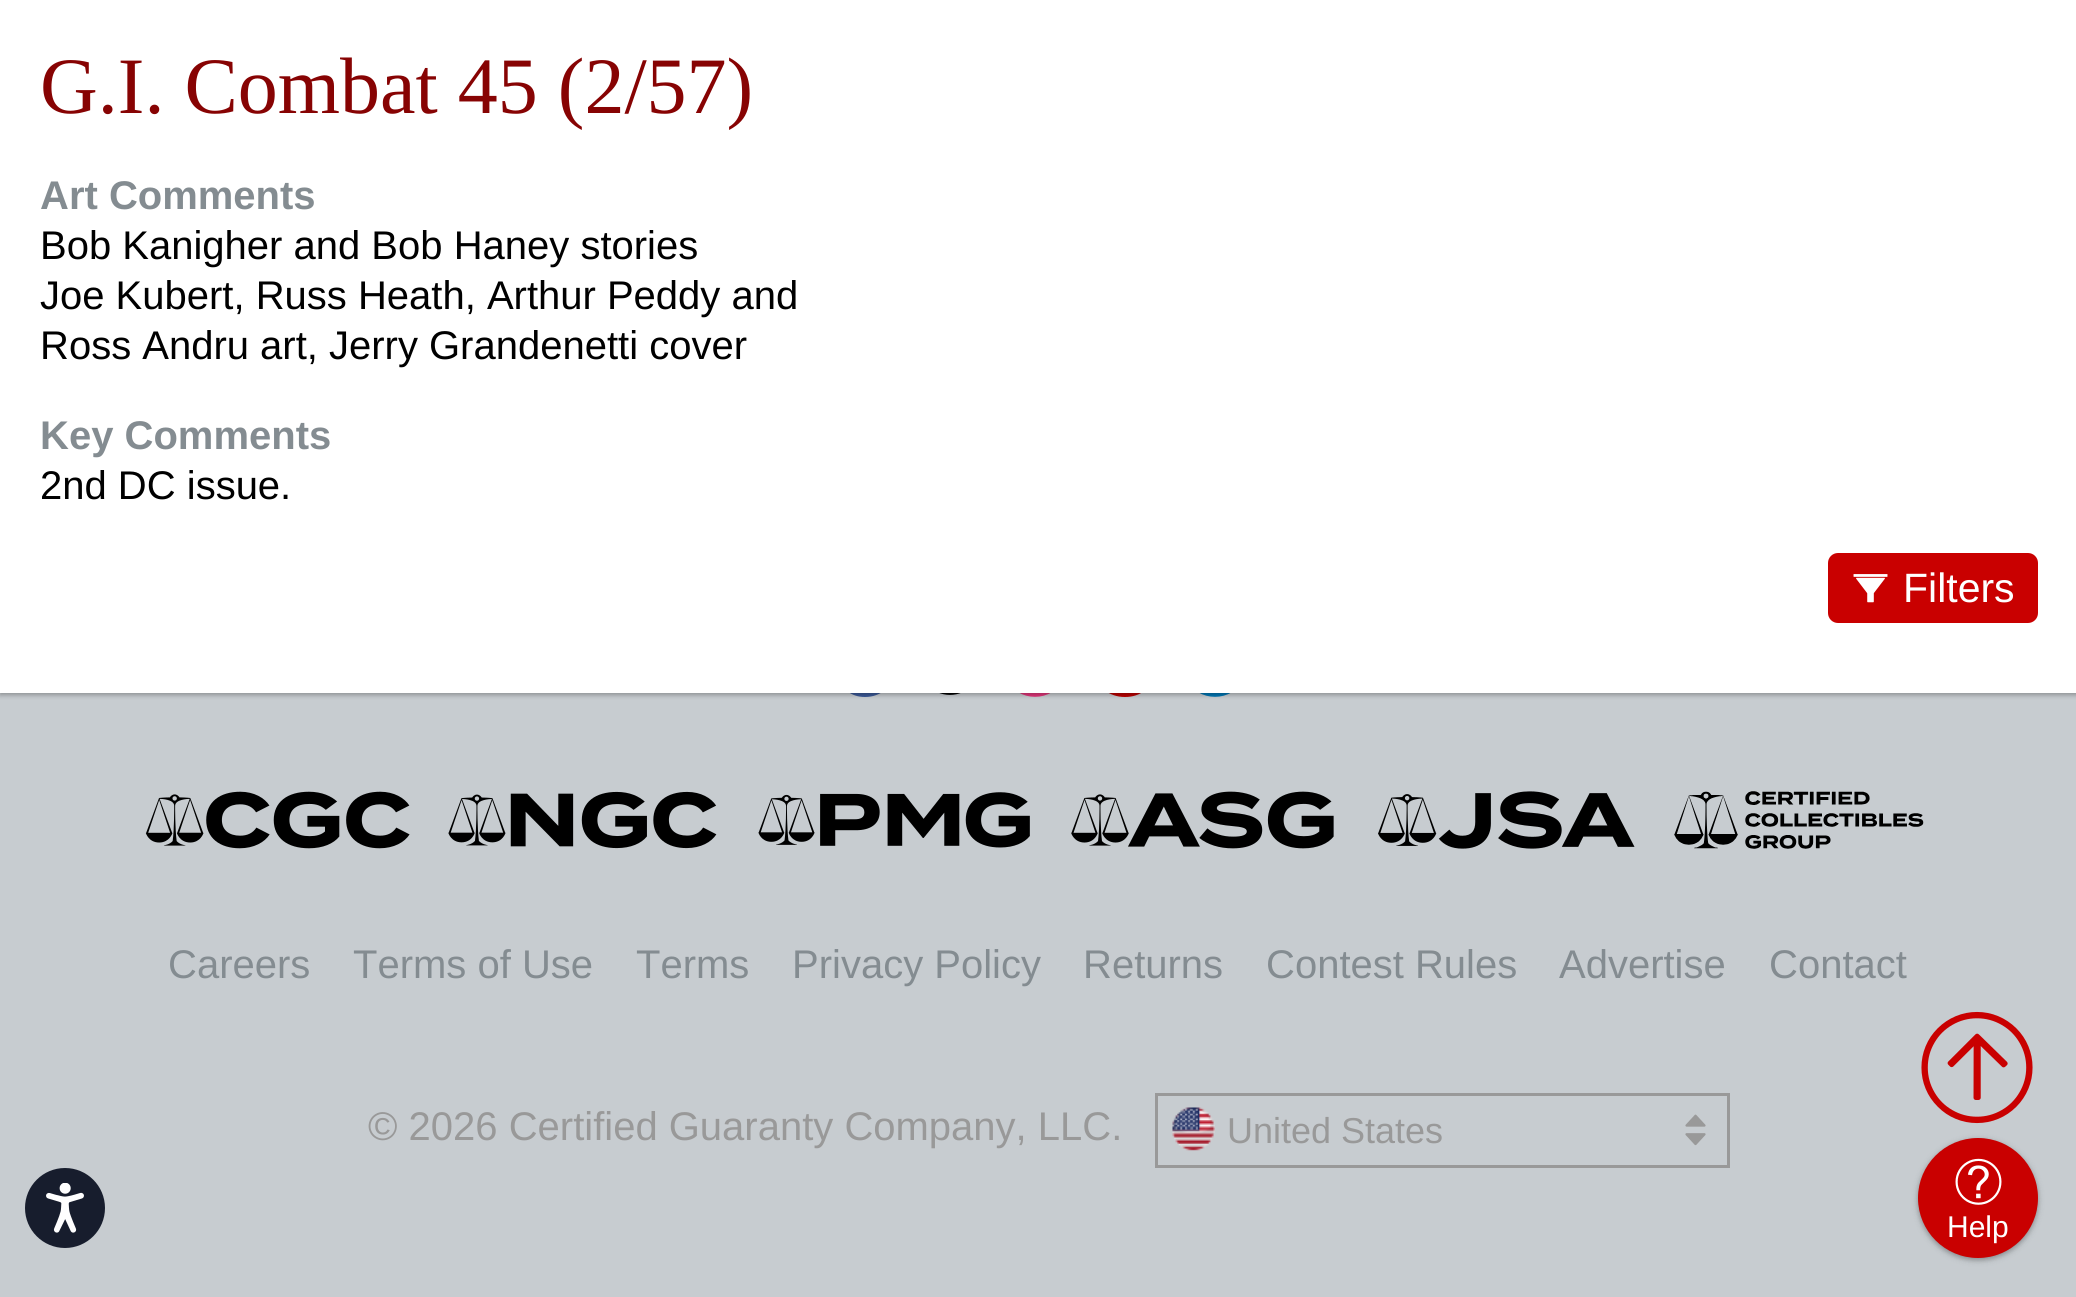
#include <cairo/cairo.h>
#include <math.h>
#include <stddef.h>


static void rounded_rect(cairo_t *cr, double x, double y, double w, double h, double r) {
  cairo_new_sub_path(cr);
  cairo_arc(cr, x + w - r, y + h - r, r, 0, M_PI / 2);
  cairo_arc(cr, x + r, y + h - r, r, M_PI / 2, M_PI);
  cairo_arc(cr, x + r, y + r, r, M_PI, 1.5 * M_PI);
  cairo_arc(cr, x + w - r, y + r, r, 1.5 * M_PI, 2 * M_PI);
  cairo_close_path(cr);
}

static void draw_shadow(cairo_t *cr, double x, double y, double w, double h, double r, double blur, double alpha) {
  cairo_push_group_with_content(cr, CAIRO_CONTENT_ALPHA);
  cairo_set_operator(cr, CAIRO_OPERATOR_SOURCE);
  for (int i = 15; i >= -15 && fmin(w, h) + blur * i / 3 > 0; i -= 2) {
    double e = blur * i / 6;
    cairo_set_source_rgba(cr, 0, 0, 0, alpha * erfc((i - 1) / 8.5) / 2);
    rounded_rect(cr, x - e, y - e, w + 2 * e, h + 2 * e, fmax(0, fmin(r + e + blur * .6, fmin(w, h) / 2 + e)));
    cairo_fill(cr);
  }
  cairo_pattern_t *soft = cairo_pop_group(cr);
  cairo_mask(cr, soft);
  cairo_pattern_destroy(soft);
}

static void draw_image(cairo_t *cr, const char *path, double x, double y, double w, double h) {
  cairo_surface_t *image = cairo_image_surface_create_from_png(path);
  cairo_save(cr);
  cairo_set_source_surface(cr, image, x, y);
  cairo_rectangle(cr, x, y, w, h);
  cairo_fill(cr);
  cairo_restore(cr);
  cairo_surface_destroy(image);
}

static void draw(cairo_t *cr) {
  cairo_set_source_rgb(cr, 199 / 255.0, 204 / 255.0, 208 / 255.0);
  cairo_paint(cr);
  cairo_set_source_rgb(cr, 59 / 255.0, 89 / 255.0, 152 / 255.0);
  cairo_new_path(cr);
  cairo_move_to(cr, 865, 631);
  cairo_curve_to(cr, 833, 631, 820, 673, 847, 691);
  cairo_curve_to(cr, 852, 695, 858, 697, 865, 697);
  cairo_curve_to(cr, 897, 697, 910, 654, 883, 636);
  cairo_curve_to(cr, 878, 633, 872, 631, 865, 631);
  cairo_close_path(cr);
  cairo_move_to(cr, 876, 649);
  cairo_curve_to(cr, 868, 649, 868, 650, 868, 658);
  cairo_line_to(cr, 876, 658);
  cairo_line_to(cr, 875, 666);
  cairo_line_to(cr, 868, 666);
  cairo_line_to(cr, 868, 686);
  cairo_line_to(cr, 860, 686);
  cairo_line_to(cr, 860, 666);
  cairo_line_to(cr, 854, 666);
  cairo_line_to(cr, 854, 658);
  cairo_line_to(cr, 860, 658);
  cairo_curve_to(cr, 860, 645, 862, 641, 876, 642);
  cairo_close_path(cr);
  cairo_fill(cr);
  draw_image(cr, "images/2.png", 939, 693, 22, 2);
  draw_image(cr, "images/3.png", 1019, 693, 32, 4);
  cairo_set_source_rgb(cr, 187 / 255.0, 0, 0);
  cairo_new_path(cr);
  cairo_move_to(cr, 1125, 630);
  cairo_curve_to(cr, 1118, 630, 1110, 633, 1105, 637);
  cairo_curve_to(cr, 1080, 657, 1093, 697, 1125, 697);
  cairo_curve_to(cr, 1132, 697, 1140, 695, 1145, 690);
  cairo_curve_to(cr, 1170, 671, 1157, 630, 1125, 630);
  cairo_close_path(cr);
  cairo_move_to(cr, 1146, 665);
  cairo_curve_to(cr, 1146, 674, 1146, 678, 1137, 678);
  cairo_line_to(cr, 1113, 678);
  cairo_curve_to(cr, 1104, 678, 1104, 674, 1104, 665);
  cairo_curve_to(cr, 1104, 646, 1106, 649, 1125, 649);
  cairo_curve_to(cr, 1144, 649, 1146, 646, 1146, 665);
  cairo_close_path(cr);
  cairo_move_to(cr, 1121, 657);
  cairo_line_to(cr, 1132, 663);
  cairo_line_to(cr, 1121, 669);
  cairo_close_path(cr);
  cairo_fill(cr);
  draw_image(cr, "images/4.png", 1199, 693, 32, 4);
  cairo_set_source_rgb(cr, 0, 0, 0);
  draw_shadow(cr, 0, 3, 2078, 692, 0, 2.5, 0.3);
  cairo_set_source_rgb(cr, 1, 1, 1);
  cairo_rectangle(cr, 0, 0, 2076, 693);
  cairo_fill(cr);
  cairo_set_source_rgb(cr, 201 / 255.0, 0, 0);
  rounded_rect(cr, 1828, 553, 210, 70, 10);
  cairo_fill(cr);
  draw_image(cr, "images/1.png", 1853, 574, 35, 29);
  draw_image(cr, "images/5.png", 145, 791, 265, 58);
  draw_image(cr, "images/6.png", 448, 791, 269, 58);
  draw_image(cr, "images/7.png", 758, 792, 272, 56);
  draw_image(cr, "images/8.png", 1071, 791, 263, 58);
  draw_image(cr, "images/9.png", 1378, 791, 257, 58);
  draw_image(cr, "images/10.png", 1674, 791, 250, 58);
  cairo_rectangle(cr, 1156.5, 1094.5, 572, 72);
  cairo_set_source_rgb(cr, 153 / 255.0, 153 / 255.0, 153 / 255.0);
  cairo_set_line_width(cr, 3);
  cairo_stroke(cr);
  draw_image(cr, "images/11.png", 1172, 1107, 43, 44);
  draw_image(cr, "images/12.png", 1685, 1114, 21, 32);
  draw_image(cr, "images/13.png", 1921, 1011, 112, 113);
  cairo_set_source_rgb(cr, 23 / 255.0, 29 / 255.0, 45 / 255.0);
  cairo_arc(cr, 65, 1208, 40, 0, 2 * M_PI);
  cairo_fill(cr);
  draw_image(cr, "images/14.png", 46, 1183, 38, 50);
  cairo_set_source_rgb(cr, 0, 0, 0);
  draw_shadow(cr, 1918, 1140, 120, 120, 60, 2.5, 0.24);
  draw_shadow(cr, 1918, 1140, 120, 120, 60, 4, 0.12);
  cairo_set_source_rgb(cr, 201 / 255.0, 0, 0);
  cairo_arc(cr, 1978, 1198, 60, 0, 2 * M_PI);
  cairo_fill(cr);
  draw_image(cr, "images/15.png", 1955, 1158, 47, 47);
  cairo_select_font_face(cr, "Liberation Serif", CAIRO_FONT_SLANT_NORMAL, CAIRO_FONT_WEIGHT_NORMAL);
  cairo_set_font_size(cr, 80);
  cairo_set_source_rgb(cr, 135 / 255.0, 3 / 255.0, 3 / 255.0);
  cairo_move_to(cr, 40, 113);
  cairo_show_text(cr, "G.I. Combat 45 (2/57)");
  cairo_select_font_face(cr, "Liberation Sans", CAIRO_FONT_SLANT_NORMAL, CAIRO_FONT_WEIGHT_BOLD);
  cairo_set_font_size(cr, 40);
  cairo_set_source_rgb(cr, 132 / 255.0, 140 / 255.0, 145 / 255.0);
  cairo_move_to(cr, 40, 209);
  cairo_show_text(cr, "Art Comments");
  cairo_select_font_face(cr, "Liberation Sans", CAIRO_FONT_SLANT_NORMAL, CAIRO_FONT_WEIGHT_NORMAL);
  cairo_set_source_rgb(cr, 0, 0, 0);
  cairo_move_to(cr, 40, 259);
  cairo_show_text(cr, "Bob Kanigher and Bob Haney stories");
  cairo_move_to(cr, 40, 309);
  cairo_show_text(cr, "Joe Kubert, Russ Heath, Arthur Peddy and");
  cairo_move_to(cr, 40, 359);
  cairo_show_text(cr, "Ross Andru art, Jerry Grandenetti cover");
  cairo_select_font_face(cr, "Liberation Sans", CAIRO_FONT_SLANT_NORMAL, CAIRO_FONT_WEIGHT_BOLD);
  cairo_set_source_rgb(cr, 132 / 255.0, 140 / 255.0, 145 / 255.0);
  cairo_move_to(cr, 40, 449);
  cairo_show_text(cr, "Key Comments");
  cairo_select_font_face(cr, "Liberation Sans", CAIRO_FONT_SLANT_NORMAL, CAIRO_FONT_WEIGHT_NORMAL);
  cairo_set_source_rgb(cr, 0, 0, 0);
  cairo_move_to(cr, 40, 499);
  cairo_show_text(cr, "2nd DC issue.");
  cairo_set_font_size(cr, 41);
  cairo_set_source_rgb(cr, 1, 1, 1);
  cairo_move_to(cr, 1903, 602);
  cairo_show_text(cr, "Filters");
  cairo_set_font_size(cr, 40);
  cairo_set_source_rgb(cr, 132 / 255.0, 140 / 255.0, 145 / 255.0);
  cairo_move_to(cr, 168, 978);
  cairo_show_text(cr, "Careers");
  cairo_move_to(cr, 353, 978);
  cairo_show_text(cr, "Terms of Use");
  cairo_move_to(cr, 636, 978);
  cairo_show_text(cr, "Terms");
  cairo_move_to(cr, 792, 978);
  cairo_show_text(cr, "Privacy Policy");
  cairo_move_to(cr, 1083, 978);
  cairo_show_text(cr, "Returns");
  cairo_move_to(cr, 1266, 978);
  cairo_show_text(cr, "Contest Rules");
  cairo_move_to(cr, 1559, 978);
  cairo_show_text(cr, "Advertise");
  cairo_move_to(cr, 1769, 978);
  cairo_show_text(cr, "Contact");
  cairo_set_source_rgb(cr, 153 / 255.0, 153 / 255.0, 153 / 255.0);
  cairo_move_to(cr, 368, 1140);
  cairo_show_text(cr, "© 2026 Certified Guaranty Company, LLC.");
  cairo_set_font_size(cr, 36);
  cairo_move_to(cr, 1227, 1143);
  cairo_show_text(cr, "United States");
  cairo_set_font_size(cr, 30);
  cairo_set_source_rgb(cr, 1, 1, 1);
  cairo_move_to(cr, 1947, 1237);
  cairo_show_text(cr, "Help");
}

int main(void) {
  cairo_surface_t *surface = cairo_image_surface_create(CAIRO_FORMAT_RGB24, 2076, 1297);
  cairo_t *cr = cairo_create(surface);
  cairo_font_options_t *options = cairo_font_options_create();
  cairo_font_options_set_hint_metrics(options, CAIRO_HINT_METRICS_OFF);
  cairo_font_options_set_hint_style(options, CAIRO_HINT_STYLE_NONE);
  cairo_set_font_options(cr, options);
  cairo_set_miter_limit(cr, 4);
  draw(cr);
  cairo_surface_write_to_png(surface, "out.png");
  cairo_font_options_destroy(options);
  cairo_destroy(cr);
  cairo_surface_destroy(surface);
  return 0;
}
